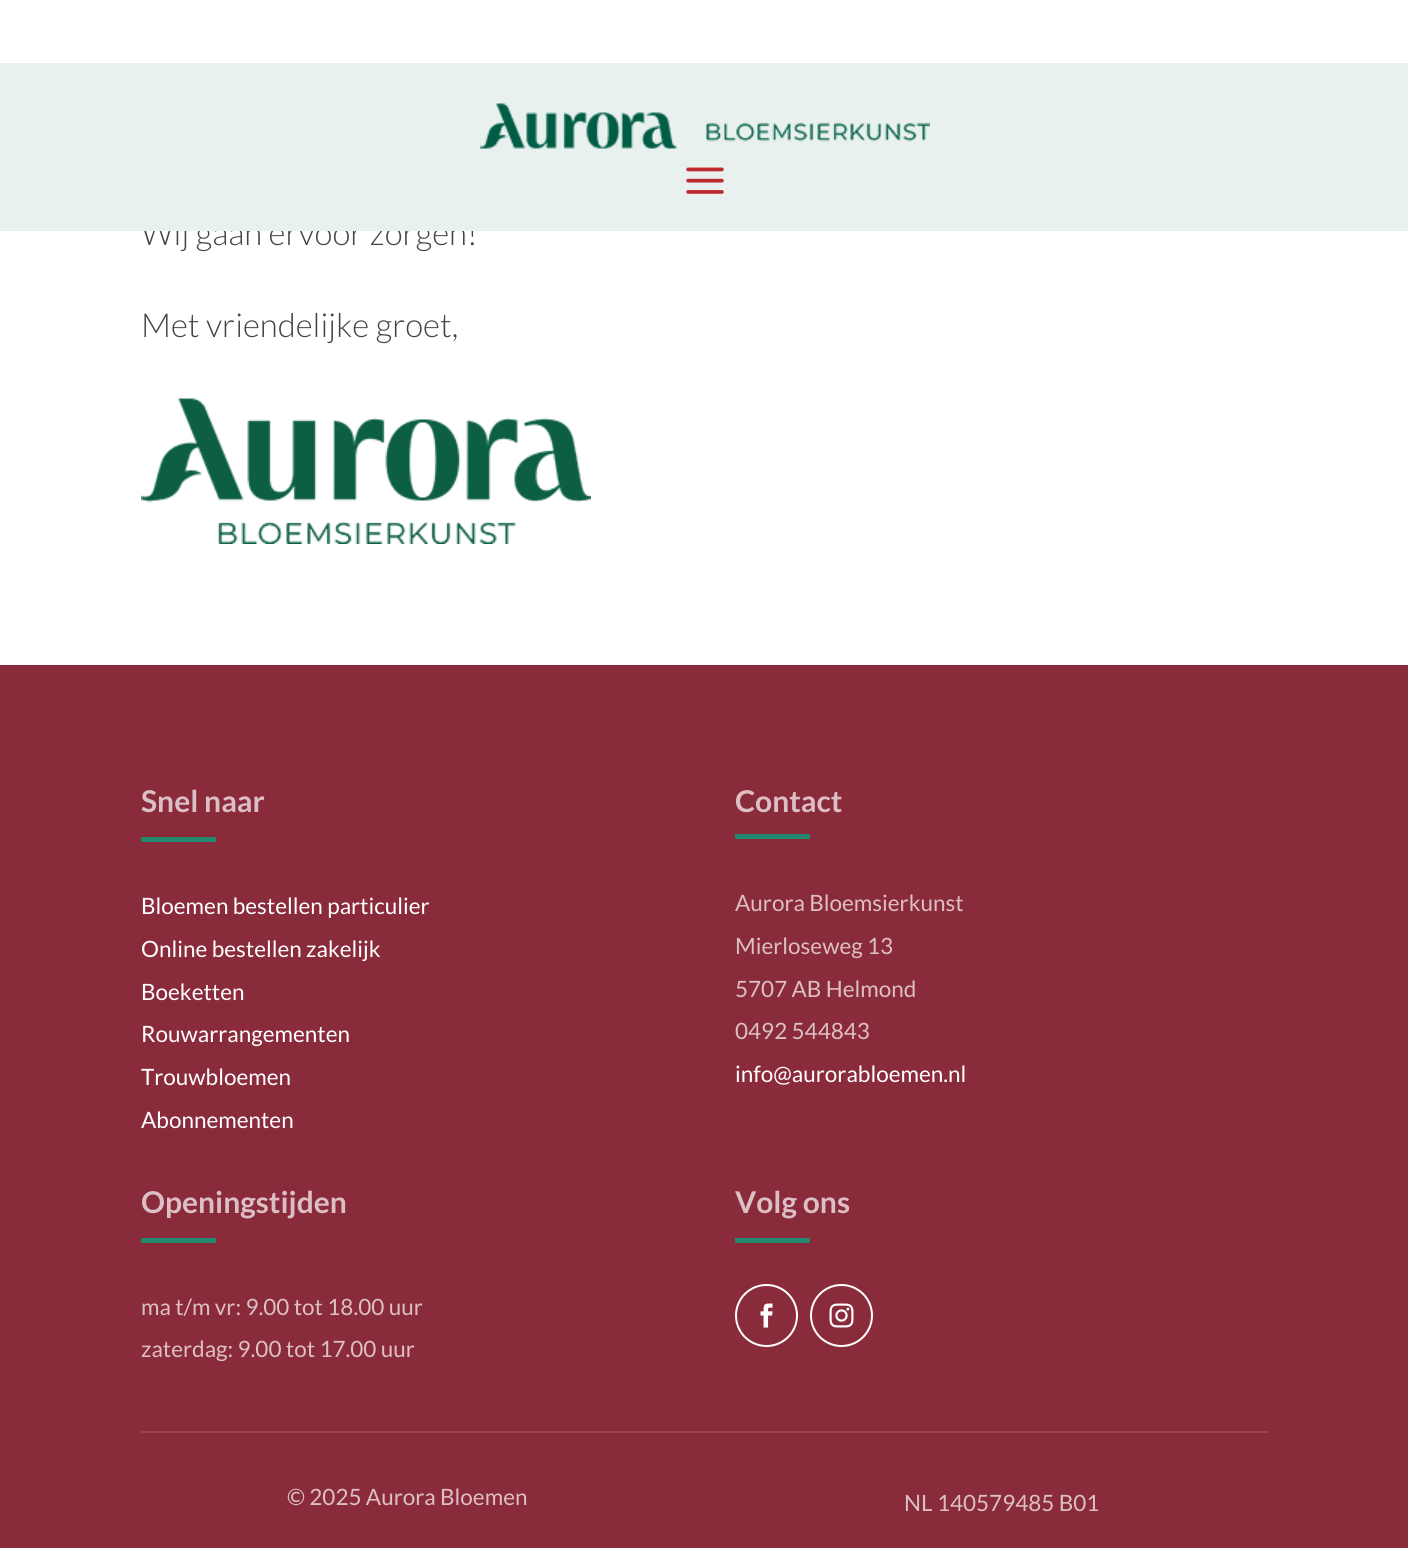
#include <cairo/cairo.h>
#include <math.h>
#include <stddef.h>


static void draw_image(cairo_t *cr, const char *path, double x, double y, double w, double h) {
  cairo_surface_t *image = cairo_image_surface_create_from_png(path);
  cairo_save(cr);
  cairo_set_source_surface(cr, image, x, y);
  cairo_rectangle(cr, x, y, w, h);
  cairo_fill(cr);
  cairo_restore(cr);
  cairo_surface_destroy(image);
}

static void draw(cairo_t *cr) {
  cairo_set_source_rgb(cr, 1, 1, 1);
  cairo_paint(cr);
  draw_image(cr, "images/3.png", 141, 398, 450, 146);
  cairo_set_source_rgb(cr, 138 / 255.0, 43 / 255.0, 59 / 255.0);
  cairo_rectangle(cr, 0, 665, 1408, 883);
  cairo_fill(cr);
  cairo_set_source_rgb(cr, 34 / 255.0, 136 / 255.0, 110 / 255.0);
  cairo_rectangle(cr, 141, 837, 75, 5);
  cairo_fill(cr);
  cairo_rectangle(cr, 735, 834, 75, 5);
  cairo_fill(cr);
  cairo_rectangle(cr, 141, 1238, 75, 5);
  cairo_fill(cr);
  cairo_rectangle(cr, 735, 1238, 75, 5);
  cairo_fill(cr);
  cairo_arc(cr, 766.5, 1315.5, 30.5, 0, 2 * M_PI);
  cairo_set_source_rgb(cr, 1, 1, 1);
  cairo_stroke(cr);
  draw_image(cr, "images/4.png", 760, 1303, 13, 25);
  cairo_arc(cr, 841.5, 1315.5, 30.5, 0, 2 * M_PI);
  cairo_stroke(cr);
  draw_image(cr, "images/5.png", 829, 1303, 25, 25);
  cairo_set_source_rgb(cr, 152 / 255.0, 68 / 255.0, 83 / 255.0);
  cairo_rectangle(cr, 141, 1431, 1127, 2);
  cairo_fill(cr);
  cairo_select_font_face(cr, "Lato Light", CAIRO_FONT_SLANT_NORMAL, CAIRO_FONT_WEIGHT_NORMAL);
  cairo_set_font_size(cr, 33);
  cairo_set_source_rgb(cr, 68 / 255.0, 68 / 255.0, 68 / 255.0);
  cairo_move_to(cr, 141, 245);
  cairo_show_text(cr, "Wij gaan ervoor zorgen!");
  cairo_set_source_rgb(cr, 233 / 255.0, 241 / 255.0, 239 / 255.0);
  cairo_rectangle(cr, 0, 63, 1408, 168);
  cairo_fill(cr);
  draw_image(cr, "images/2.png", 686, 167, 38, 27);
  draw_image(cr, "images/1.png", 480, 103, 450, 46);
  cairo_set_source_rgb(cr, 68 / 255.0, 68 / 255.0, 68 / 255.0);
  cairo_move_to(cr, 141, 337);
  cairo_show_text(cr, "Met vriendelijke groet,");
  cairo_select_font_face(cr, "Lato", CAIRO_FONT_SLANT_NORMAL, CAIRO_FONT_WEIGHT_BOLD);
  cairo_set_font_size(cr, 30);
  cairo_set_source_rgb(cr, 220 / 255.0, 191 / 255.0, 196 / 255.0);
  cairo_move_to(cr, 141, 812);
  cairo_show_text(cr, "Snel naar");
  cairo_select_font_face(cr, "Lato", CAIRO_FONT_SLANT_NORMAL, CAIRO_FONT_WEIGHT_NORMAL);
  cairo_set_font_size(cr, 22.5);
  cairo_set_source_rgb(cr, 1, 1, 1);
  cairo_move_to(cr, 141, 914);
  cairo_show_text(cr, "Bloemen bestellen particulier");
  cairo_move_to(cr, 141, 957);
  cairo_show_text(cr, "Online bestellen zakelijk");
  cairo_move_to(cr, 141, 1000);
  cairo_show_text(cr, "Boeketten");
  cairo_move_to(cr, 141, 1042);
  cairo_show_text(cr, "Rouwarrangementen");
  cairo_move_to(cr, 141, 1085);
  cairo_show_text(cr, "Trouwbloemen");
  cairo_move_to(cr, 141, 1128);
  cairo_show_text(cr, "Abonnementen");
  cairo_select_font_face(cr, "Lato", CAIRO_FONT_SLANT_NORMAL, CAIRO_FONT_WEIGHT_BOLD);
  cairo_set_font_size(cr, 30);
  cairo_set_source_rgb(cr, 220 / 255.0, 191 / 255.0, 196 / 255.0);
  cairo_move_to(cr, 735, 812);
  cairo_show_text(cr, "Contact");
  cairo_select_font_face(cr, "Lato", CAIRO_FONT_SLANT_NORMAL, CAIRO_FONT_WEIGHT_NORMAL);
  cairo_set_font_size(cr, 22.5);
  cairo_move_to(cr, 735, 911);
  cairo_show_text(cr, "Aurora Bloemsierkunst");
  cairo_move_to(cr, 735, 954);
  cairo_show_text(cr, "Mierloseweg 13");
  cairo_move_to(cr, 735, 997);
  cairo_show_text(cr, "5707 AB Helmond");
  cairo_move_to(cr, 735, 1039);
  cairo_show_text(cr, "0492 544843");
  cairo_set_source_rgb(cr, 1, 1, 1);
  cairo_move_to(cr, 735, 1082);
  cairo_show_text(cr, "info@aurorabloemen.nl");
  cairo_select_font_face(cr, "Lato", CAIRO_FONT_SLANT_NORMAL, CAIRO_FONT_WEIGHT_BOLD);
  cairo_set_font_size(cr, 30);
  cairo_set_source_rgb(cr, 220 / 255.0, 191 / 255.0, 196 / 255.0);
  cairo_move_to(cr, 141, 1213);
  cairo_show_text(cr, "Openingstijden");
  cairo_select_font_face(cr, "Lato", CAIRO_FONT_SLANT_NORMAL, CAIRO_FONT_WEIGHT_NORMAL);
  cairo_set_font_size(cr, 22.5);
  cairo_move_to(cr, 141, 1315);
  cairo_show_text(cr, "ma t/m vr: 9.00 tot 18.00 uur");
  cairo_move_to(cr, 141, 1357);
  cairo_show_text(cr, "zaterdag: 9.00 tot 17.00 uur");
  cairo_select_font_face(cr, "Lato", CAIRO_FONT_SLANT_NORMAL, CAIRO_FONT_WEIGHT_BOLD);
  cairo_set_font_size(cr, 30);
  cairo_move_to(cr, 735, 1213);
  cairo_show_text(cr, "Volg ons");
  cairo_select_font_face(cr, "Lato", CAIRO_FONT_SLANT_NORMAL, CAIRO_FONT_WEIGHT_NORMAL);
  cairo_set_font_size(cr, 22.5);
  cairo_move_to(cr, 287, 1505);
  cairo_show_text(cr, "© 2025 Aurora Bloemen");
  cairo_move_to(cr, 904, 1511);
  cairo_show_text(cr, "NL 140579485 B01");
}

int main(void) {
  cairo_surface_t *surface = cairo_image_surface_create(CAIRO_FORMAT_RGB24, 1408, 1548);
  cairo_t *cr = cairo_create(surface);
  cairo_font_options_t *options = cairo_font_options_create();
  cairo_font_options_set_hint_metrics(options, CAIRO_HINT_METRICS_OFF);
  cairo_font_options_set_hint_style(options, CAIRO_HINT_STYLE_NONE);
  cairo_set_font_options(cr, options);
  cairo_set_miter_limit(cr, 4);
  draw(cr);
  cairo_surface_write_to_png(surface, "out.png");
  cairo_font_options_destroy(options);
  cairo_destroy(cr);
  cairo_surface_destroy(surface);
  return 0;
}
